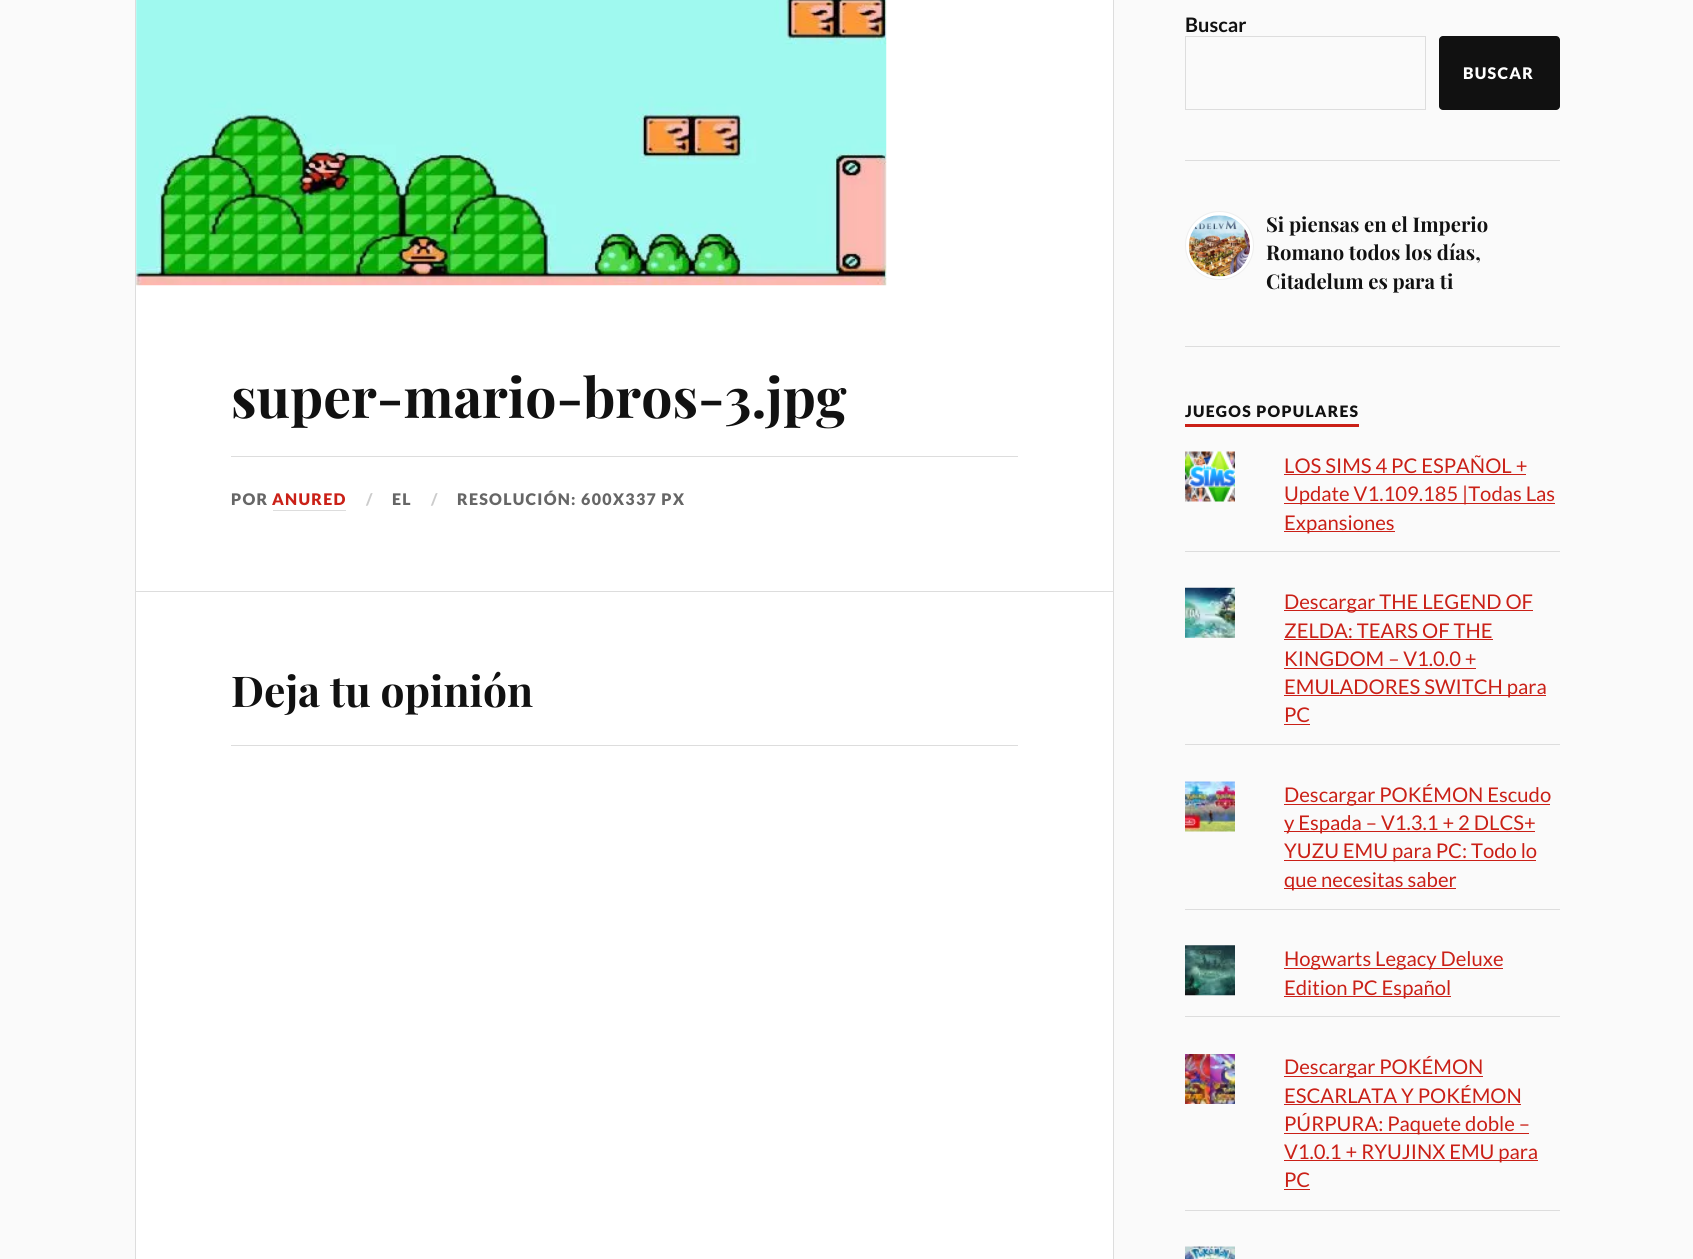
#include <cairo/cairo.h>
#include <math.h>
#include <stddef.h>


static void draw_spaced(cairo_t *cr, double x, double y, const char *s, double letter, double word) {
  cairo_move_to(cr, x, y);
  while (*s) {
    char ch[5] = {0};
    int n = 0;
    do ch[n++] = *s++; while ((*s & 0xC0) == 0x80);
    cairo_show_text(cr, ch);
    cairo_rel_move_to(cr, letter + word * (*ch == ' '), 0);
  }
}

static void rounded_rect(cairo_t *cr, double x, double y, double w, double h, double r) {
  cairo_new_sub_path(cr);
  cairo_arc(cr, x + w - r, y + h - r, r, 0, M_PI / 2);
  cairo_arc(cr, x + r, y + h - r, r, M_PI / 2, M_PI);
  cairo_arc(cr, x + r, y + r, r, M_PI, 1.5 * M_PI);
  cairo_arc(cr, x + w - r, y + r, r, 1.5 * M_PI, 2 * M_PI);
  cairo_close_path(cr);
}

static void draw_image(cairo_t *cr, const char *path, double x, double y, double w, double h) {
  cairo_surface_t *image = cairo_image_surface_create_from_png(path);
  cairo_save(cr);
  cairo_set_source_surface(cr, image, x, y);
  cairo_rectangle(cr, x, y, w, h);
  cairo_fill(cr);
  cairo_restore(cr);
  cairo_surface_destroy(image);
}

static void draw(cairo_t *cr) {
  cairo_set_source_rgb(cr, 250 / 255.0, 250 / 255.0, 250 / 255.0);
  cairo_paint(cr);
  cairo_set_source_rgb(cr, 1, 1, 1);
  cairo_rectangle(cr, 135.5, -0.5, 978, 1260);
  cairo_fill_preserve(cr);
  cairo_set_source_rgb(cr, 221 / 255.0, 221 / 255.0, 221 / 255.0);
  cairo_set_line_width(cr, 1);
  cairo_stroke(cr);
  draw_image(cr, "images/1.png", 136, 0, 751, 286);
  cairo_rectangle(cr, 231, 456, 787, 1);
  cairo_fill(cr);
  cairo_rectangle(cr, 273, 510, 73, 1);
  cairo_fill(cr);
  cairo_rectangle(cr, 136, 591, 977, 1);
  cairo_fill(cr);
  cairo_rectangle(cr, 231, 745, 787, 1);
  cairo_fill(cr);
  cairo_rectangle(cr, 1185.5, 36.5, 240, 73);
  cairo_stroke(cr);
  cairo_set_source_rgb(cr, 17 / 255.0, 17 / 255.0, 17 / 255.0);
  rounded_rect(cr, 1439, 36, 121, 74, 4);
  cairo_fill(cr);
  cairo_set_source_rgb(cr, 221 / 255.0, 221 / 255.0, 221 / 255.0);
  cairo_rectangle(cr, 1185, 160, 375, 1);
  cairo_fill(cr);
  cairo_set_source_rgb(cr, 1, 1, 1);
  cairo_arc(cr, 1219.5, 245.5, 34, 0, 2 * M_PI);
  cairo_fill_preserve(cr);
  cairo_set_source_rgb(cr, 238 / 255.0, 238 / 255.0, 238 / 255.0);
  cairo_stroke(cr);
  draw_image(cr, "images/2.png", 1188, 215, 62, 62);
  cairo_set_source_rgb(cr, 221 / 255.0, 221 / 255.0, 221 / 255.0);
  cairo_rectangle(cr, 1185, 346, 375, 1);
  cairo_fill(cr);
  cairo_set_source_rgb(cr, 202 / 255.0, 32 / 255.0, 23 / 255.0);
  cairo_rectangle(cr, 1185, 424, 174, 3);
  cairo_fill(cr);
  cairo_set_source_rgb(cr, 221 / 255.0, 221 / 255.0, 221 / 255.0);
  cairo_rectangle(cr, 1185, 551, 375, 1);
  cairo_fill(cr);
  draw_image(cr, "images/3.png", 1185, 451, 50, 51);
  cairo_set_source_rgb(cr, 202 / 255.0, 32 / 255.0, 23 / 255.0);
  cairo_rectangle(cr, 1284, 474, 242, 1);
  cairo_fill(cr);
  cairo_rectangle(cr, 1284, 503, 271, 1);
  cairo_fill(cr);
  cairo_rectangle(cr, 1284, 531, 111, 1);
  cairo_fill(cr);
  cairo_set_source_rgb(cr, 221 / 255.0, 221 / 255.0, 221 / 255.0);
  cairo_rectangle(cr, 1185, 744, 375, 1);
  cairo_fill(cr);
  draw_image(cr, "images/4.png", 1185, 587, 50, 51);
  cairo_set_source_rgb(cr, 202 / 255.0, 32 / 255.0, 23 / 255.0);
  cairo_rectangle(cr, 1284, 610, 249, 1);
  cairo_fill(cr);
  cairo_rectangle(cr, 1284, 639, 209, 1);
  cairo_fill(cr);
  cairo_rectangle(cr, 1284, 668, 192, 1);
  cairo_fill(cr);
  cairo_rectangle(cr, 1284, 695, 262, 1);
  cairo_fill(cr);
  cairo_rectangle(cr, 1284, 724, 26, 1);
  cairo_fill(cr);
  cairo_set_source_rgb(cr, 221 / 255.0, 221 / 255.0, 221 / 255.0);
  cairo_rectangle(cr, 1185, 909, 375, 1);
  cairo_fill(cr);
  draw_image(cr, "images/5.png", 1185, 781, 50, 51);
  cairo_set_source_rgb(cr, 202 / 255.0, 32 / 255.0, 23 / 255.0);
  cairo_rectangle(cr, 1284, 804, 266, 1);
  cairo_fill(cr);
  cairo_rectangle(cr, 1284, 831, 251, 1);
  cairo_fill(cr);
  cairo_rectangle(cr, 1284, 860, 252, 1);
  cairo_fill(cr);
  cairo_rectangle(cr, 1284, 888, 172, 1);
  cairo_fill(cr);
  cairo_set_source_rgb(cr, 221 / 255.0, 221 / 255.0, 221 / 255.0);
  cairo_rectangle(cr, 1185, 1016, 375, 1);
  cairo_fill(cr);
  draw_image(cr, "images/6.png", 1185, 945, 50, 51);
  cairo_set_source_rgb(cr, 202 / 255.0, 32 / 255.0, 23 / 255.0);
  cairo_rectangle(cr, 1284, 968, 219, 1);
  cairo_fill(cr);
  cairo_rectangle(cr, 1284, 996, 167, 1);
  cairo_fill(cr);
  cairo_set_source_rgb(cr, 221 / 255.0, 221 / 255.0, 221 / 255.0);
  cairo_rectangle(cr, 1185, 1210, 375, 1);
  cairo_fill(cr);
  draw_image(cr, "images/7.png", 1185, 1054, 50, 50);
  cairo_set_source_rgb(cr, 202 / 255.0, 32 / 255.0, 23 / 255.0);
  cairo_rectangle(cr, 1284, 1076, 199, 1);
  cairo_fill(cr);
  cairo_rectangle(cr, 1284, 1104, 237, 1);
  cairo_fill(cr);
  cairo_rectangle(cr, 1284, 1133, 245, 1);
  cairo_fill(cr);
  cairo_rectangle(cr, 1284, 1160, 254, 1);
  cairo_fill(cr);
  cairo_rectangle(cr, 1284, 1189, 26, 1);
  cairo_fill(cr);
  draw_image(cr, "images/8.png", 1185, 1246, 50, 13);
  cairo_select_font_face(cr, "Playfair Display", CAIRO_FONT_SLANT_NORMAL, CAIRO_FONT_WEIGHT_BOLD);
  cairo_set_font_size(cr, 55.25);
  cairo_set_source_rgb(cr, 17 / 255.0, 17 / 255.0, 17 / 255.0);
  cairo_move_to(cr, 231, 418);
  cairo_show_text(cr, "super-mario-bros-3.jpg");
  cairo_select_font_face(cr, "Lato Black", CAIRO_FONT_SLANT_NORMAL, CAIRO_FONT_WEIGHT_NORMAL);
  cairo_set_font_size(cr, 16);
  cairo_set_source_rgb(cr, 102 / 255.0, 102 / 255.0, 102 / 255.0);
  draw_spaced(cr, 231, 505, "POR", 1.25, 0);
  cairo_set_source_rgb(cr, 202 / 255.0, 32 / 255.0, 23 / 255.0);
  draw_spaced(cr, 272, 505, "ANURED", 1.25, 0);
  cairo_set_source_rgb(cr, 204 / 255.0, 204 / 255.0, 204 / 255.0);
  draw_spaced(cr, 366, 505, "/", 1.25, 0);
  cairo_set_source_rgb(cr, 102 / 255.0, 102 / 255.0, 102 / 255.0);
  draw_spaced(cr, 392, 505, "EL", 1.25, 0);
  cairo_set_source_rgb(cr, 204 / 255.0, 204 / 255.0, 204 / 255.0);
  draw_spaced(cr, 431, 505, "/", 1.25, 0);
  cairo_set_source_rgb(cr, 102 / 255.0, 102 / 255.0, 102 / 255.0);
  draw_spaced(cr, 457, 505, "RESOLUCIÓN: 600X337 PX", 1.25, 0);
  cairo_select_font_face(cr, "Playfair Display", CAIRO_FONT_SLANT_NORMAL, CAIRO_FONT_WEIGHT_BOLD);
  cairo_set_font_size(cr, 42.5);
  cairo_set_source_rgb(cr, 17 / 255.0, 17 / 255.0, 17 / 255.0);
  cairo_move_to(cr, 231, 707);
  cairo_show_text(cr, "Deja tu opinión");
  cairo_select_font_face(cr, "Lato", CAIRO_FONT_SLANT_NORMAL, CAIRO_FONT_WEIGHT_BOLD);
  cairo_set_font_size(cr, 20);
  cairo_move_to(cr, 1185, 32);
  cairo_show_text(cr, "Buscar");
  cairo_select_font_face(cr, "Lato Black", CAIRO_FONT_SLANT_NORMAL, CAIRO_FONT_WEIGHT_NORMAL);
  cairo_set_font_size(cr, 16);
  cairo_set_source_rgb(cr, 1, 1, 1);
  draw_spaced(cr, 1463, 79, "BUSCAR", 1.25, 0);
  cairo_select_font_face(cr, "Playfair Display", CAIRO_FONT_SLANT_NORMAL, CAIRO_FONT_WEIGHT_BOLD);
  cairo_set_font_size(cr, 20.25);
  cairo_set_source_rgb(cr, 17 / 255.0, 17 / 255.0, 17 / 255.0);
  cairo_move_to(cr, 1266, 232);
  cairo_show_text(cr, "Si piensas en el Imperio");
  cairo_move_to(cr, 1266, 260);
  cairo_show_text(cr, "Romano todos los días,");
  cairo_move_to(cr, 1266, 289);
  cairo_show_text(cr, "Citadelum es para ti");
  cairo_select_font_face(cr, "Lato Black", CAIRO_FONT_SLANT_NORMAL, CAIRO_FONT_WEIGHT_NORMAL);
  cairo_set_font_size(cr, 15.75);
  draw_spaced(cr, 1185, 417, "JUEGOS POPULARES", 1.25, 0);
  cairo_select_font_face(cr, "Lato", CAIRO_FONT_SLANT_NORMAL, CAIRO_FONT_WEIGHT_NORMAL);
  cairo_set_font_size(cr, 20.25);
  cairo_set_source_rgb(cr, 202 / 255.0, 32 / 255.0, 23 / 255.0);
  cairo_move_to(cr, 1284, 473);
  cairo_show_text(cr, "LOS SIMS 4 PC ESPAÑOL +");
  cairo_move_to(cr, 1284, 501);
  cairo_show_text(cr, "Update V1.109.185 |Todas Las");
  cairo_move_to(cr, 1284, 530);
  cairo_show_text(cr, "Expansiones");
  cairo_move_to(cr, 1284, 609);
  cairo_show_text(cr, "Descargar THE LEGEND OF");
  cairo_move_to(cr, 1284, 638);
  cairo_show_text(cr, "ZELDA: TEARS OF THE");
  cairo_move_to(cr, 1284, 666);
  cairo_show_text(cr, "KINGDOM – V1.0.0 +");
  cairo_move_to(cr, 1284, 694);
  cairo_show_text(cr, "EMULADORES SWITCH para");
  cairo_move_to(cr, 1284, 722);
  cairo_show_text(cr, "PC");
  cairo_move_to(cr, 1284, 802);
  cairo_show_text(cr, "Descargar POKÉMON Escudo");
  cairo_move_to(cr, 1284, 830);
  cairo_show_text(cr, "y Espada – V1.3.1 + 2 DLCS+");
  cairo_move_to(cr, 1284, 858);
  cairo_show_text(cr, "YUZU EMU para PC: Todo lo");
  cairo_move_to(cr, 1284, 887);
  cairo_show_text(cr, "que necesitas saber");
  cairo_move_to(cr, 1284, 966);
  cairo_show_text(cr, "Hogwarts Legacy Deluxe");
  cairo_move_to(cr, 1284, 995);
  cairo_show_text(cr, "Edition PC Español");
  cairo_move_to(cr, 1284, 1074);
  cairo_show_text(cr, "Descargar POKÉMON");
  cairo_move_to(cr, 1284, 1103);
  cairo_show_text(cr, "ESCARLATA Y POKÉMON");
  cairo_move_to(cr, 1284, 1131);
  cairo_show_text(cr, "PÚRPURA: Paquete doble –");
  cairo_move_to(cr, 1284, 1159);
  cairo_show_text(cr, "V1.0.1 + RYUJINX EMU para");
  cairo_move_to(cr, 1284, 1187);
  cairo_show_text(cr, "PC");
}

int main(void) {
  cairo_surface_t *surface = cairo_image_surface_create(CAIRO_FORMAT_RGB24, 1693, 1259);
  cairo_t *cr = cairo_create(surface);
  cairo_font_options_t *options = cairo_font_options_create();
  cairo_font_options_set_hint_metrics(options, CAIRO_HINT_METRICS_OFF);
  cairo_font_options_set_hint_style(options, CAIRO_HINT_STYLE_NONE);
  cairo_set_font_options(cr, options);
  cairo_set_miter_limit(cr, 4);
  draw(cr);
  cairo_surface_write_to_png(surface, "out.png");
  cairo_font_options_destroy(options);
  cairo_destroy(cr);
  cairo_surface_destroy(surface);
  return 0;
}
